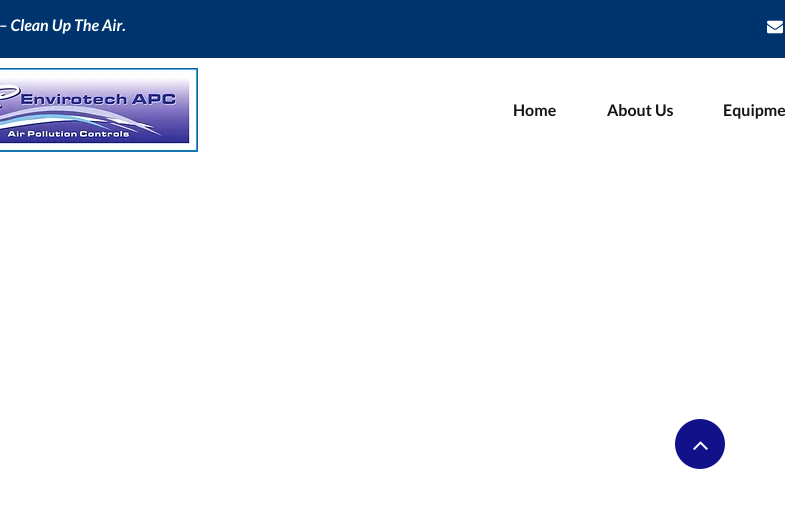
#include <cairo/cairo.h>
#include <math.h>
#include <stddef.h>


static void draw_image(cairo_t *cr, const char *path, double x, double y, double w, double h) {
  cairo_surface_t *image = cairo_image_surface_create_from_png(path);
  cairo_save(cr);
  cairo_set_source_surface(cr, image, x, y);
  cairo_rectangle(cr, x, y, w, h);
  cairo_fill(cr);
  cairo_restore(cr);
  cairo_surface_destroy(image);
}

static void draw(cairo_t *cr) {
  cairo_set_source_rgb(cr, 1, 1, 1);
  cairo_paint(cr);
  cairo_set_source_rgb(cr, 0, 52 / 255.0, 110 / 255.0);
  cairo_rectangle(cr, 0, 0, 785, 58);
  cairo_fill(cr);
  draw_image(cr, "images/1.png", 767, 20, 16, 14);
  draw_image(cr, "images/2.png", 0, 68, 198, 84);
  cairo_set_source_rgb(cr, 17 / 255.0, 17 / 255.0, 138 / 255.0);
  cairo_arc(cr, 700, 444, 25, 0, 2 * M_PI);
  cairo_fill(cr);
  draw_image(cr, "images/3.png", 693, 441, 15, 9);
  cairo_select_font_face(cr, "Lato", CAIRO_FONT_SLANT_ITALIC, CAIRO_FONT_WEIGHT_BOLD);
  cairo_set_font_size(cr, 16);
  cairo_set_source_rgb(cr, 1, 1, 1);
  cairo_move_to(cr, -1, 31);
  cairo_show_text(cr, "– Clean Up The Air.");
  cairo_select_font_face(cr, "Lato", CAIRO_FONT_SLANT_NORMAL, CAIRO_FONT_WEIGHT_BOLD);
  cairo_set_source_rgb(cr, 21 / 255.0, 21 / 255.0, 21 / 255.0);
  cairo_move_to(cr, 513, 116);
  cairo_show_text(cr, "Home");
  cairo_move_to(cr, 607, 116);
  cairo_show_text(cr, "About Us");
  cairo_move_to(cr, 723, 116);
  cairo_show_text(cr, "Equipme");
}

int main(void) {
  cairo_surface_t *surface = cairo_image_surface_create(CAIRO_FORMAT_RGB24, 785, 529);
  cairo_t *cr = cairo_create(surface);
  cairo_font_options_t *options = cairo_font_options_create();
  cairo_font_options_set_hint_metrics(options, CAIRO_HINT_METRICS_OFF);
  cairo_font_options_set_hint_style(options, CAIRO_HINT_STYLE_NONE);
  cairo_set_font_options(cr, options);
  cairo_set_miter_limit(cr, 4);
  draw(cr);
  cairo_surface_write_to_png(surface, "out.png");
  cairo_font_options_destroy(options);
  cairo_destroy(cr);
  cairo_surface_destroy(surface);
  return 0;
}
